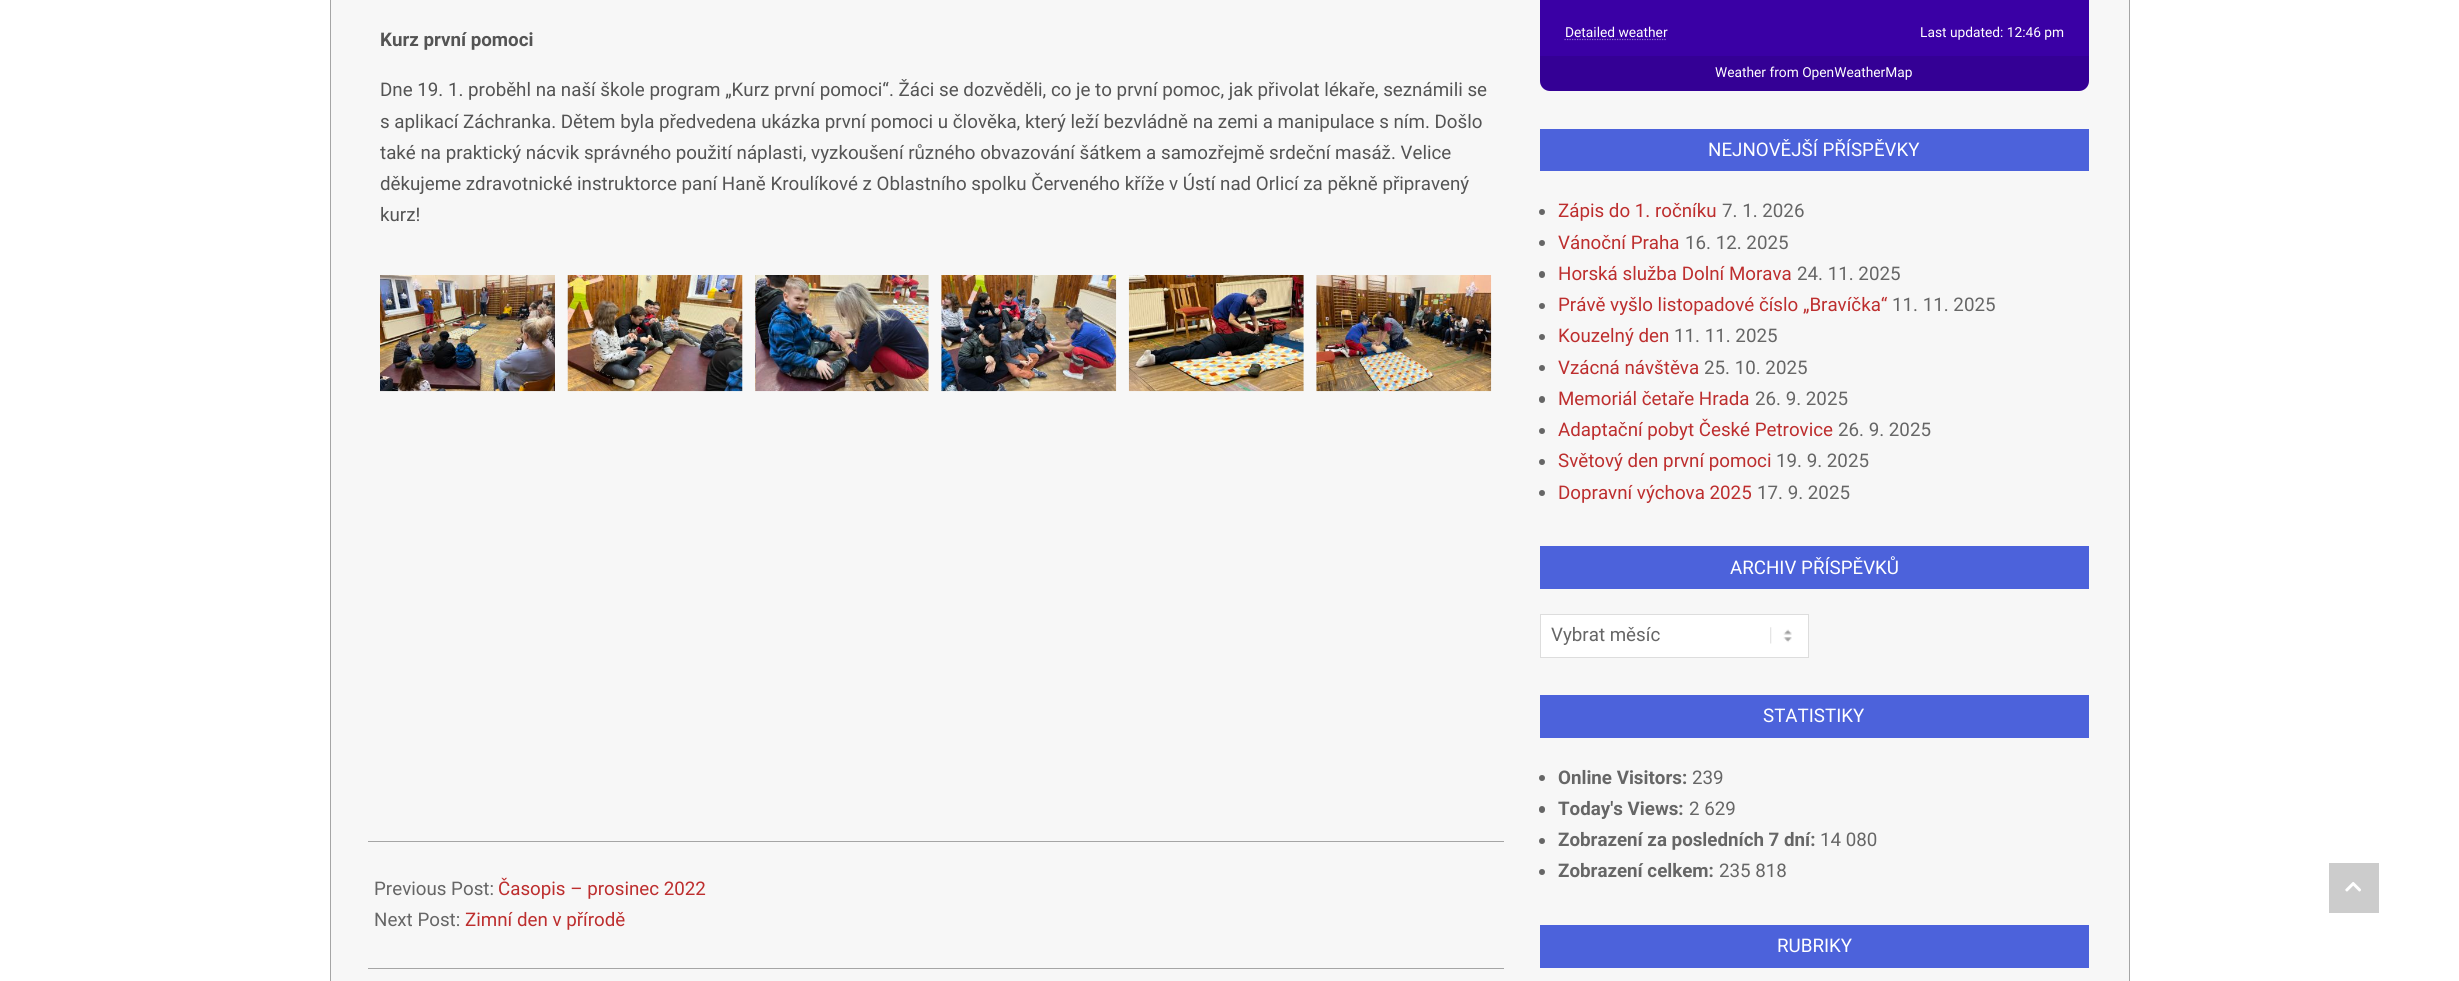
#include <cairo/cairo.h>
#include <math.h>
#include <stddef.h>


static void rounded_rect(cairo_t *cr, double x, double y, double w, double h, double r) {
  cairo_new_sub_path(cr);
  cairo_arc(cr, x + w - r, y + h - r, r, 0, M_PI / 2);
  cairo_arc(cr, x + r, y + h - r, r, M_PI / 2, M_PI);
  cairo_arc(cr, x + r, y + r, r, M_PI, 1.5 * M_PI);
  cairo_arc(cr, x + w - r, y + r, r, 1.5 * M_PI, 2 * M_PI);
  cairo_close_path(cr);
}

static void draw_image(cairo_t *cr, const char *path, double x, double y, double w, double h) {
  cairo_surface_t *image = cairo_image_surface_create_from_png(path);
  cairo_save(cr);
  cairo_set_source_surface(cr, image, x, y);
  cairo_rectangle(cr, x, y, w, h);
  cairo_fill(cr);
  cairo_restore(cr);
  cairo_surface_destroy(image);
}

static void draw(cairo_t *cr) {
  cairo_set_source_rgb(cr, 1, 1, 1);
  cairo_paint(cr);
  cairo_set_source_rgb(cr, 247 / 255.0, 247 / 255.0, 247 / 255.0);
  cairo_rectangle(cr, 331, 0, 1798, 981);
  cairo_fill(cr);
  cairo_set_source_rgb(cr, 165 / 255.0, 165 / 255.0, 165 / 255.0);
  cairo_rectangle(cr, 2129, 0, 1, 981);
  cairo_fill(cr);
  cairo_rectangle(cr, 330, 0, 1, 981);
  cairo_fill(cr);
  cairo_rectangle(cr, 368, 841, 1136, 1);
  cairo_fill(cr);
  draw_image(cr, "images/1.png", 380, 275, 175, 117);
  draw_image(cr, "images/2.png", 567, 275, 176, 117);
  draw_image(cr, "images/3.png", 755, 275, 174, 117);
  draw_image(cr, "images/4.png", 941, 275, 176, 117);
  draw_image(cr, "images/5.png", 1128, 275, 176, 117);
  draw_image(cr, "images/6.png", 1316, 275, 176, 117);
  cairo_rectangle(cr, 368, 968, 1136, 1);
  cairo_fill(cr);
  cairo_set_source_rgb(cr, 58 / 255.0, 0, 165 / 255.0);
  rounded_rect(cr, 1540, -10, 549, 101, 10);
  cairo_fill(cr);
  cairo_new_path(cr);
  cairo_move_to(cr, 1564.5, 39.5);
  cairo_line_to(cr, 1667, 39.5);
  cairo_set_source_rgb(cr, 149 / 255.0, 117 / 255.0, 206 / 255.0);
  cairo_set_line_width(cr, 1.2);
  cairo_set_dash(cr, (double[]){1.25, 1.25}, 2, 0);
  cairo_stroke(cr);
  cairo_set_source_rgba(cr, 0, 0, 0, 0.1);
  cairo_new_path(cr);
  cairo_move_to(cr, 1540, 56);
  cairo_line_to(cr, 2089, 56);
  cairo_line_to(cr, 2089, 81);
  cairo_curve_to(cr, 2089, 86.5, 2084.5, 91, 2079, 91);
  cairo_line_to(cr, 1550, 91);
  cairo_curve_to(cr, 1544.5, 91, 1540, 86.5, 1540, 81);
  cairo_close_path(cr);
  cairo_fill(cr);
  cairo_set_source_rgb(cr, 76 / 255.0, 98 / 255.0, 219 / 255.0);
  cairo_rectangle(cr, 1540, 129, 549, 42);
  cairo_fill(cr);
  cairo_set_source_rgb(cr, 102 / 255.0, 102 / 255.0, 102 / 255.0);
  cairo_arc(cr, 1542, 212, 3, 0, 2 * M_PI);
  cairo_fill(cr);
  cairo_arc(cr, 1542, 243, 3, 0, 2 * M_PI);
  cairo_fill(cr);
  rounded_rect(cr, 1539, 271, 6, 7, 3);
  cairo_fill(cr);
  cairo_arc(cr, 1542, 306, 3, 0, 2 * M_PI);
  cairo_fill(cr);
  cairo_arc(cr, 1542, 337, 3, 0, 2 * M_PI);
  cairo_fill(cr);
  cairo_arc(cr, 1542, 368, 3, 0, 2 * M_PI);
  cairo_fill(cr);
  rounded_rect(cr, 1539, 396, 6, 7, 3);
  cairo_fill(cr);
  cairo_arc(cr, 1542, 431, 3, 0, 2 * M_PI);
  cairo_fill(cr);
  cairo_arc(cr, 1542, 462, 3, 0, 2 * M_PI);
  cairo_fill(cr);
  cairo_arc(cr, 1542, 493, 3, 0, 2 * M_PI);
  cairo_fill(cr);
  cairo_set_source_rgb(cr, 76 / 255.0, 98 / 255.0, 219 / 255.0);
  cairo_rectangle(cr, 1540, 546, 549, 43);
  cairo_fill(cr);
  cairo_set_source_rgb(cr, 1, 1, 1);
  cairo_rectangle(cr, 1541, 615, 267, 42);
  cairo_fill(cr);
  draw_image(cr, "images/7.png", 1770, 627, 22, 17);
  cairo_rectangle(cr, 1540.5, 614.5, 268, 43);
  cairo_set_source_rgb(cr, 221 / 255.0, 221 / 255.0, 221 / 255.0);
  cairo_set_line_width(cr, 1);
  cairo_set_dash(cr, NULL, 0, 0);
  cairo_stroke(cr);
  cairo_set_source_rgb(cr, 76 / 255.0, 98 / 255.0, 219 / 255.0);
  cairo_rectangle(cr, 1540, 695, 549, 43);
  cairo_fill(cr);
  cairo_set_source_rgb(cr, 102 / 255.0, 102 / 255.0, 102 / 255.0);
  cairo_arc(cr, 1542, 778, 3, 0, 2 * M_PI);
  cairo_fill(cr);
  rounded_rect(cr, 1539, 806, 6, 7, 3);
  cairo_fill(cr);
  cairo_arc(cr, 1542, 841, 3, 0, 2 * M_PI);
  cairo_fill(cr);
  cairo_arc(cr, 1542, 872, 3, 0, 2 * M_PI);
  cairo_fill(cr);
  cairo_set_source_rgb(cr, 76 / 255.0, 98 / 255.0, 219 / 255.0);
  cairo_rectangle(cr, 1540, 925, 549, 43);
  cairo_fill(cr);
  cairo_set_source_rgb(cr, 204 / 255.0, 204 / 255.0, 204 / 255.0);
  cairo_rectangle(cr, 2329, 863, 50, 50);
  cairo_fill(cr);
  draw_image(cr, "images/8.png", 2345, 882, 16, 10);
  cairo_select_font_face(cr, "Roboto", CAIRO_FONT_SLANT_NORMAL, CAIRO_FONT_WEIGHT_BOLD);
  cairo_set_font_size(cr, 18.75);
  cairo_set_source_rgb(cr, 84 / 255.0, 84 / 255.0, 84 / 255.0);
  cairo_move_to(cr, 380, 46);
  cairo_show_text(cr, "Kurz první pomoci");
  cairo_select_font_face(cr, "Roboto", CAIRO_FONT_SLANT_NORMAL, CAIRO_FONT_WEIGHT_NORMAL);
  cairo_move_to(cr, 380, 96);
  cairo_show_text(cr, "Dne 19. 1. proběhl na naší škole program „Kurz první pomoci“. Žáci se dozvěděli, co je to první pomoc, jak přivolat lékaře, seznámili se");
  cairo_move_to(cr, 380, 128);
  cairo_show_text(cr, "s aplikací Záchranka. Dětem byla předvedena ukázka první pomoci u člověka, který leží bezvládně na zemi a manipulace s ním. Došlo");
  cairo_move_to(cr, 380, 159);
  cairo_show_text(cr, "také na praktický nácvik správného použití náplasti, vyzkoušení různého obvazování šátkem a samozřejmě srdeční masáž. Velice");
  cairo_move_to(cr, 380, 190);
  cairo_show_text(cr, "děkujeme zdravotnické instruktorce paní Haně Kroulíkové z Oblastního spolku Červeného kříže v Ústí nad Orlicí za pěkně připravený");
  cairo_move_to(cr, 380, 221);
  cairo_show_text(cr, "kurz!");
  cairo_set_source_rgb(cr, 102 / 255.0, 102 / 255.0, 102 / 255.0);
  cairo_move_to(cr, 374, 895);
  cairo_show_text(cr, "Previous Post:");
  cairo_set_source_rgb(cr, 189 / 255.0, 46 / 255.0, 46 / 255.0);
  cairo_move_to(cr, 498, 895);
  cairo_show_text(cr, "Časopis – prosinec 2022");
  cairo_set_source_rgb(cr, 102 / 255.0, 102 / 255.0, 102 / 255.0);
  cairo_move_to(cr, 374, 926);
  cairo_show_text(cr, "Next Post:");
  cairo_set_source_rgb(cr, 189 / 255.0, 46 / 255.0, 46 / 255.0);
  cairo_move_to(cr, 465, 926);
  cairo_show_text(cr, "Zimní den v přírodě");
  cairo_set_font_size(cr, 13.75);
  cairo_set_source_rgb(cr, 1, 1, 1);
  cairo_move_to(cr, 1565, 37);
  cairo_show_text(cr, "Detailed weather");
  cairo_move_to(cr, 1920, 37);
  cairo_show_text(cr, "Last updated: 12:46 pm");
  cairo_move_to(cr, 1715, 77);
  cairo_show_text(cr, "Weather from OpenWeatherMap");
  cairo_set_font_size(cr, 18.75);
  cairo_move_to(cr, 1708, 156);
  cairo_show_text(cr, "NEJNOVĚJŠÍ PŘÍSPĚVKY");
  cairo_set_source_rgb(cr, 189 / 255.0, 46 / 255.0, 46 / 255.0);
  cairo_move_to(cr, 1558, 217);
  cairo_show_text(cr, "Zápis do 1. ročníku");
  cairo_set_source_rgb(cr, 102 / 255.0, 102 / 255.0, 102 / 255.0);
  cairo_move_to(cr, 1722, 217);
  cairo_show_text(cr, "7. 1. 2026");
  cairo_set_source_rgb(cr, 189 / 255.0, 46 / 255.0, 46 / 255.0);
  cairo_move_to(cr, 1558, 249);
  cairo_show_text(cr, "Vánoční Praha");
  cairo_set_source_rgb(cr, 102 / 255.0, 102 / 255.0, 102 / 255.0);
  cairo_move_to(cr, 1685, 249);
  cairo_show_text(cr, "16. 12. 2025");
  cairo_set_source_rgb(cr, 189 / 255.0, 46 / 255.0, 46 / 255.0);
  cairo_move_to(cr, 1558, 280);
  cairo_show_text(cr, "Horská služba Dolní Morava");
  cairo_set_source_rgb(cr, 102 / 255.0, 102 / 255.0, 102 / 255.0);
  cairo_move_to(cr, 1797, 280);
  cairo_show_text(cr, "24. 11. 2025");
  cairo_set_source_rgb(cr, 189 / 255.0, 46 / 255.0, 46 / 255.0);
  cairo_move_to(cr, 1558, 311);
  cairo_show_text(cr, "Právě vyšlo listopadové číslo „Bravíčka“");
  cairo_set_source_rgb(cr, 102 / 255.0, 102 / 255.0, 102 / 255.0);
  cairo_move_to(cr, 1892, 311);
  cairo_show_text(cr, "11. 11. 2025");
  cairo_set_source_rgb(cr, 189 / 255.0, 46 / 255.0, 46 / 255.0);
  cairo_move_to(cr, 1558, 342);
  cairo_show_text(cr, "Kouzelný den");
  cairo_set_source_rgb(cr, 102 / 255.0, 102 / 255.0, 102 / 255.0);
  cairo_move_to(cr, 1674, 342);
  cairo_show_text(cr, "11. 11. 2025");
  cairo_set_source_rgb(cr, 189 / 255.0, 46 / 255.0, 46 / 255.0);
  cairo_move_to(cr, 1558, 374);
  cairo_show_text(cr, "Vzácná návštěva");
  cairo_set_source_rgb(cr, 102 / 255.0, 102 / 255.0, 102 / 255.0);
  cairo_move_to(cr, 1704, 374);
  cairo_show_text(cr, "25. 10. 2025");
  cairo_set_source_rgb(cr, 189 / 255.0, 46 / 255.0, 46 / 255.0);
  cairo_move_to(cr, 1558, 405);
  cairo_show_text(cr, "Memoriál četaře Hrada");
  cairo_set_source_rgb(cr, 102 / 255.0, 102 / 255.0, 102 / 255.0);
  cairo_move_to(cr, 1755, 405);
  cairo_show_text(cr, "26. 9. 2025");
  cairo_set_source_rgb(cr, 189 / 255.0, 46 / 255.0, 46 / 255.0);
  cairo_move_to(cr, 1558, 436);
  cairo_show_text(cr, "Adaptační pobyt České Petrovice");
  cairo_set_source_rgb(cr, 102 / 255.0, 102 / 255.0, 102 / 255.0);
  cairo_move_to(cr, 1838, 436);
  cairo_show_text(cr, "26. 9. 2025");
  cairo_set_source_rgb(cr, 189 / 255.0, 46 / 255.0, 46 / 255.0);
  cairo_move_to(cr, 1558, 467);
  cairo_show_text(cr, "Světový den první pomoci");
  cairo_set_source_rgb(cr, 102 / 255.0, 102 / 255.0, 102 / 255.0);
  cairo_move_to(cr, 1776, 467);
  cairo_show_text(cr, "19. 9. 2025");
  cairo_set_source_rgb(cr, 189 / 255.0, 46 / 255.0, 46 / 255.0);
  cairo_move_to(cr, 1558, 499);
  cairo_show_text(cr, "Dopravní výchova 2025");
  cairo_set_source_rgb(cr, 102 / 255.0, 102 / 255.0, 102 / 255.0);
  cairo_move_to(cr, 1757, 499);
  cairo_show_text(cr, "17. 9. 2025");
  cairo_set_source_rgb(cr, 1, 1, 1);
  cairo_move_to(cr, 1730, 574);
  cairo_show_text(cr, "ARCHIV PŘÍSPĚVKŮ");
  cairo_set_source_rgb(cr, 102 / 255.0, 102 / 255.0, 102 / 255.0);
  cairo_move_to(cr, 1551, 641);
  cairo_show_text(cr, "Vybrat měsíc");
  cairo_set_source_rgb(cr, 1, 1, 1);
  cairo_move_to(cr, 1763, 722);
  cairo_show_text(cr, "STATISTIKY");
  cairo_select_font_face(cr, "Roboto", CAIRO_FONT_SLANT_NORMAL, CAIRO_FONT_WEIGHT_BOLD);
  cairo_set_source_rgb(cr, 102 / 255.0, 102 / 255.0, 102 / 255.0);
  cairo_move_to(cr, 1558, 784);
  cairo_show_text(cr, "Online Visitors:");
  cairo_select_font_face(cr, "Roboto", CAIRO_FONT_SLANT_NORMAL, CAIRO_FONT_WEIGHT_NORMAL);
  cairo_move_to(cr, 1692, 784);
  cairo_show_text(cr, "239");
  cairo_select_font_face(cr, "Roboto", CAIRO_FONT_SLANT_NORMAL, CAIRO_FONT_WEIGHT_BOLD);
  cairo_move_to(cr, 1558, 815);
  cairo_show_text(cr, "Today's Views:");
  cairo_select_font_face(cr, "Roboto", CAIRO_FONT_SLANT_NORMAL, CAIRO_FONT_WEIGHT_NORMAL);
  cairo_move_to(cr, 1689, 815);
  cairo_show_text(cr, "2 629");
  cairo_select_font_face(cr, "Roboto", CAIRO_FONT_SLANT_NORMAL, CAIRO_FONT_WEIGHT_BOLD);
  cairo_move_to(cr, 1558, 846);
  cairo_show_text(cr, "Zobrazení za posledních 7 dní:");
  cairo_select_font_face(cr, "Roboto", CAIRO_FONT_SLANT_NORMAL, CAIRO_FONT_WEIGHT_NORMAL);
  cairo_move_to(cr, 1820, 846);
  cairo_show_text(cr, "14 080");
  cairo_select_font_face(cr, "Roboto", CAIRO_FONT_SLANT_NORMAL, CAIRO_FONT_WEIGHT_BOLD);
  cairo_move_to(cr, 1558, 877);
  cairo_show_text(cr, "Zobrazení celkem:");
  cairo_select_font_face(cr, "Roboto", CAIRO_FONT_SLANT_NORMAL, CAIRO_FONT_WEIGHT_NORMAL);
  cairo_move_to(cr, 1719, 877);
  cairo_show_text(cr, "235 818");
  cairo_set_source_rgb(cr, 1, 1, 1);
  cairo_move_to(cr, 1777, 952);
  cairo_show_text(cr, "RUBRIKY");
}

int main(void) {
  cairo_surface_t *surface = cairo_image_surface_create(CAIRO_FORMAT_RGB24, 2459, 981);
  cairo_t *cr = cairo_create(surface);
  cairo_font_options_t *options = cairo_font_options_create();
  cairo_font_options_set_hint_metrics(options, CAIRO_HINT_METRICS_OFF);
  cairo_font_options_set_hint_style(options, CAIRO_HINT_STYLE_NONE);
  cairo_set_font_options(cr, options);
  cairo_set_miter_limit(cr, 4);
  draw(cr);
  cairo_surface_write_to_png(surface, "out.png");
  cairo_font_options_destroy(options);
  cairo_destroy(cr);
  cairo_surface_destroy(surface);
  return 0;
}
